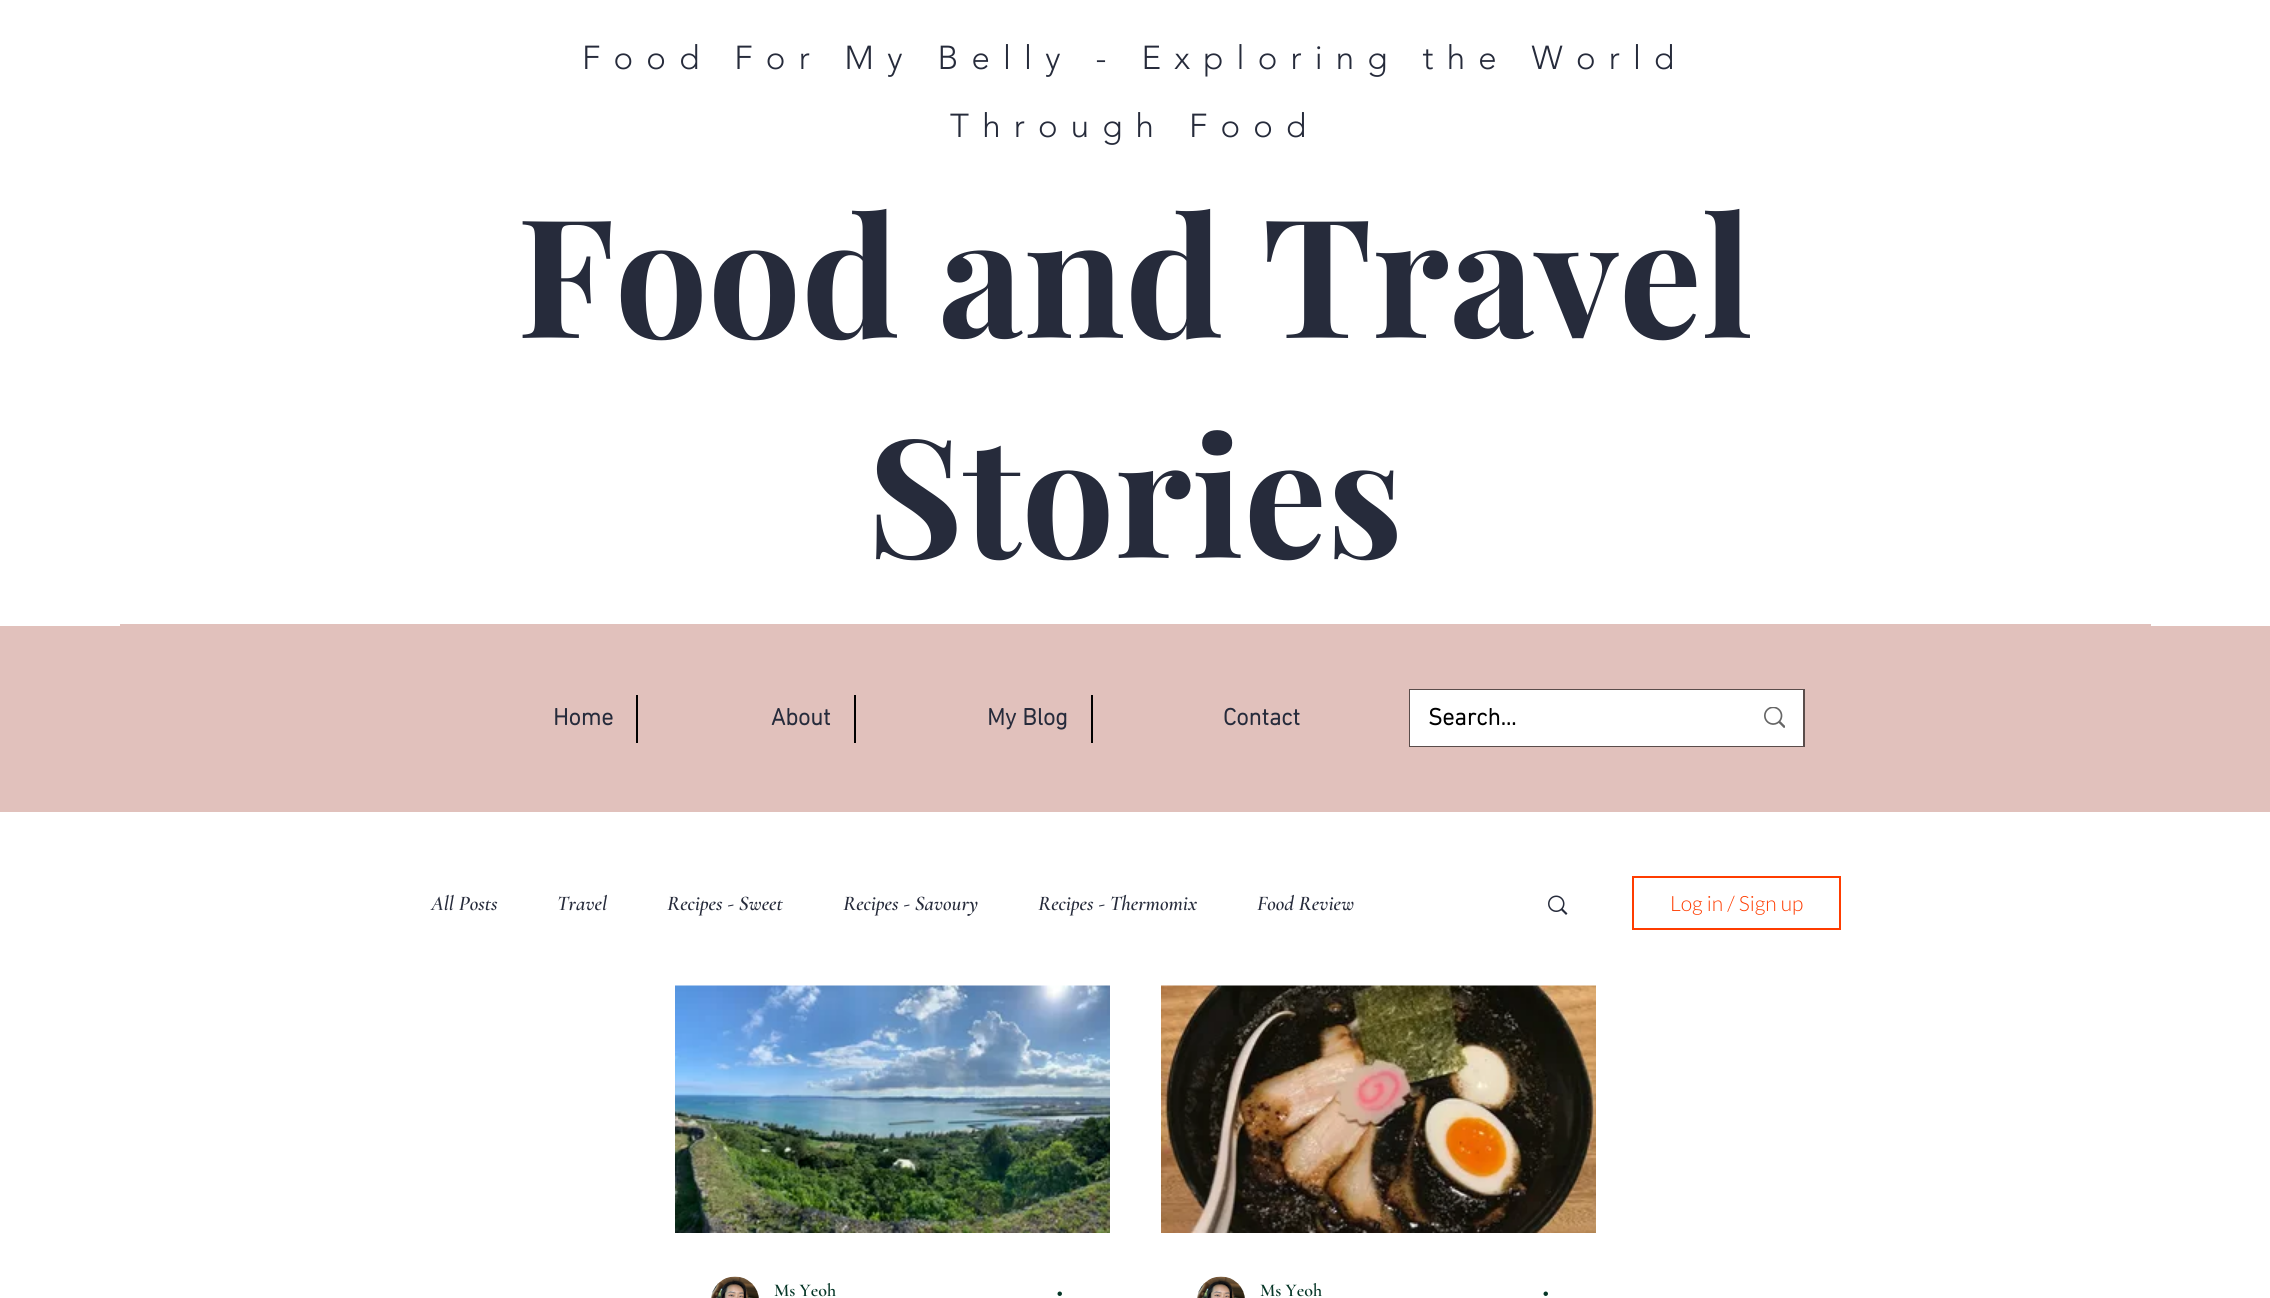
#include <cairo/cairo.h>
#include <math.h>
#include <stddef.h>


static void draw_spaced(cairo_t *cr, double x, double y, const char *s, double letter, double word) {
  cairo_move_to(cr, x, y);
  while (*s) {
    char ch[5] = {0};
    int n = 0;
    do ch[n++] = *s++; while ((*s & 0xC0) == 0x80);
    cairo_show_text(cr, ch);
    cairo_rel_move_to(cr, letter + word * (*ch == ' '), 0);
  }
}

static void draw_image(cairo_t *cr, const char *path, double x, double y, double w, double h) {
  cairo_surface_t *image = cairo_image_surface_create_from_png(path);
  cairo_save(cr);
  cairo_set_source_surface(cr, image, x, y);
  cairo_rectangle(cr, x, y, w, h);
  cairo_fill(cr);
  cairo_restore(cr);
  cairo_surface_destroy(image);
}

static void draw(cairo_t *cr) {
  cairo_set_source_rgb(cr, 1, 1, 1);
  cairo_paint(cr);
  cairo_set_source_rgb(cr, 225 / 255.0, 193 / 255.0, 188 / 255.0);
  cairo_rectangle(cr, 0, 626, 2270, 186);
  cairo_fill(cr);
  cairo_rectangle(cr, 120, 624, 2031, 2);
  cairo_fill(cr);
  cairo_set_source_rgb(cr, 0, 0, 0);
  cairo_rectangle(cr, 636, 695, 2, 48);
  cairo_fill(cr);
  cairo_rectangle(cr, 854, 695, 2, 48);
  cairo_fill(cr);
  cairo_rectangle(cr, 1091, 695, 2, 48);
  cairo_fill(cr);
  cairo_rectangle(cr, 1410, 690, 394, 56);
  cairo_set_source_rgb(cr, 90 / 255.0, 77 / 255.0, 75 / 255.0);
  cairo_stroke(cr);
  cairo_set_source_rgb(cr, 1, 1, 1);
  cairo_rectangle(cr, 1410, 690, 393, 56);
  cairo_fill(cr);
  draw_image(cr, "images/1.png", 1764, 707, 21, 21);
  draw_image(cr, "images/2.png", 1548, 895, 20, 20);
  cairo_rectangle(cr, 1633, 877, 207, 52);
  cairo_set_source_rgb(cr, 1, 60 / 255.0, 0);
  cairo_stroke(cr);
  draw_image(cr, "images/3.png", 675, 985, 435, 248);
  draw_image(cr, "images/4.png", 711, 1276, 48, 22);
  draw_image(cr, "images/5.png", 1057, 1291, 5, 5);
  draw_image(cr, "images/6.png", 1161, 985, 435, 248);
  draw_image(cr, "images/4.png", 1197, 1276, 48, 22);
  draw_image(cr, "images/5.png", 1543, 1291, 5, 5);
  cairo_select_font_face(cr, "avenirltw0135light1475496 Light", CAIRO_FONT_SLANT_NORMAL, CAIRO_FONT_WEIGHT_NORMAL);
  cairo_set_font_size(cr, 33);
  cairo_set_source_rgb(cr, 38 / 255.0, 43 / 255.0, 59 / 255.0);
  draw_spaced(cr, 582, 69, "Food For My Belly - Exploring the World", 13.2, 0);
  draw_spaced(cr, 950, 137, "Through Food", 13.2, 0);
  cairo_select_font_face(cr, "Playfair Display", CAIRO_FONT_SLANT_NORMAL, CAIRO_FONT_WEIGHT_BOLD);
  cairo_set_font_size(cr, 165);
  cairo_move_to(cr, 517, 338);
  cairo_show_text(cr, "Food and Travel");
  cairo_move_to(cr, 867, 558);
  cairo_show_text(cr, "Stories");
  cairo_select_font_face(cr, "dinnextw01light", CAIRO_FONT_SLANT_NORMAL, CAIRO_FONT_WEIGHT_BOLD);
  cairo_set_font_size(cr, 24);
  cairo_move_to(cr, 553, 725);
  cairo_show_text(cr, "Home");
  cairo_move_to(cr, 771, 725);
  cairo_show_text(cr, "About");
  cairo_move_to(cr, 987, 725);
  cairo_show_text(cr, "My Blog");
  cairo_move_to(cr, 1223, 725);
  cairo_show_text(cr, "Contact");
  cairo_set_source_rgb(cr, 0, 0, 0);
  cairo_move_to(cr, 1428, 725);
  cairo_show_text(cr, "Search...");
  cairo_select_font_face(cr, "Cormorant Garamond SemiBold", CAIRO_FONT_SLANT_ITALIC, CAIRO_FONT_WEIGHT_NORMAL);
  cairo_set_font_size(cr, 21);
  cairo_set_source_rgb(cr, 38 / 255.0, 43 / 255.0, 59 / 255.0);
  cairo_move_to(cr, 431, 910);
  cairo_show_text(cr, "All Posts");
  cairo_move_to(cr, 557, 910);
  cairo_show_text(cr, "Travel");
  cairo_move_to(cr, 667, 910);
  cairo_show_text(cr, "Recipes - Sweet");
  cairo_move_to(cr, 843, 910);
  cairo_show_text(cr, "Recipes - Savoury");
  cairo_move_to(cr, 1038, 910);
  cairo_show_text(cr, "Recipes - Thermomix");
  cairo_move_to(cr, 1257, 910);
  cairo_show_text(cr, "Food Review");
  cairo_select_font_face(cr, "Lato Light", CAIRO_FONT_SLANT_NORMAL, CAIRO_FONT_WEIGHT_NORMAL);
  cairo_set_source_rgb(cr, 1, 60 / 255.0, 0);
  cairo_move_to(cr, 1670, 911);
  cairo_show_text(cr, "Log in / Sign up");
  cairo_select_font_face(cr, "Cormorant Garamond SemiBold", CAIRO_FONT_SLANT_NORMAL, CAIRO_FONT_WEIGHT_NORMAL);
  cairo_set_font_size(cr, 18);
  cairo_set_source_rgb(cr, 6 / 255.0, 54 / 255.0, 39 / 255.0);
  cairo_move_to(cr, 774, 1296);
  cairo_show_text(cr, "Ms Yeoh");
  cairo_move_to(cr, 1260, 1296);
  cairo_show_text(cr, "Ms Yeoh");
}

int main(void) {
  cairo_surface_t *surface = cairo_image_surface_create(CAIRO_FORMAT_RGB24, 2270, 1298);
  cairo_t *cr = cairo_create(surface);
  cairo_font_options_t *options = cairo_font_options_create();
  cairo_font_options_set_hint_metrics(options, CAIRO_HINT_METRICS_OFF);
  cairo_font_options_set_hint_style(options, CAIRO_HINT_STYLE_NONE);
  cairo_set_font_options(cr, options);
  cairo_set_miter_limit(cr, 4);
  draw(cr);
  cairo_surface_write_to_png(surface, "out.png");
  cairo_font_options_destroy(options);
  cairo_destroy(cr);
  cairo_surface_destroy(surface);
  return 0;
}
